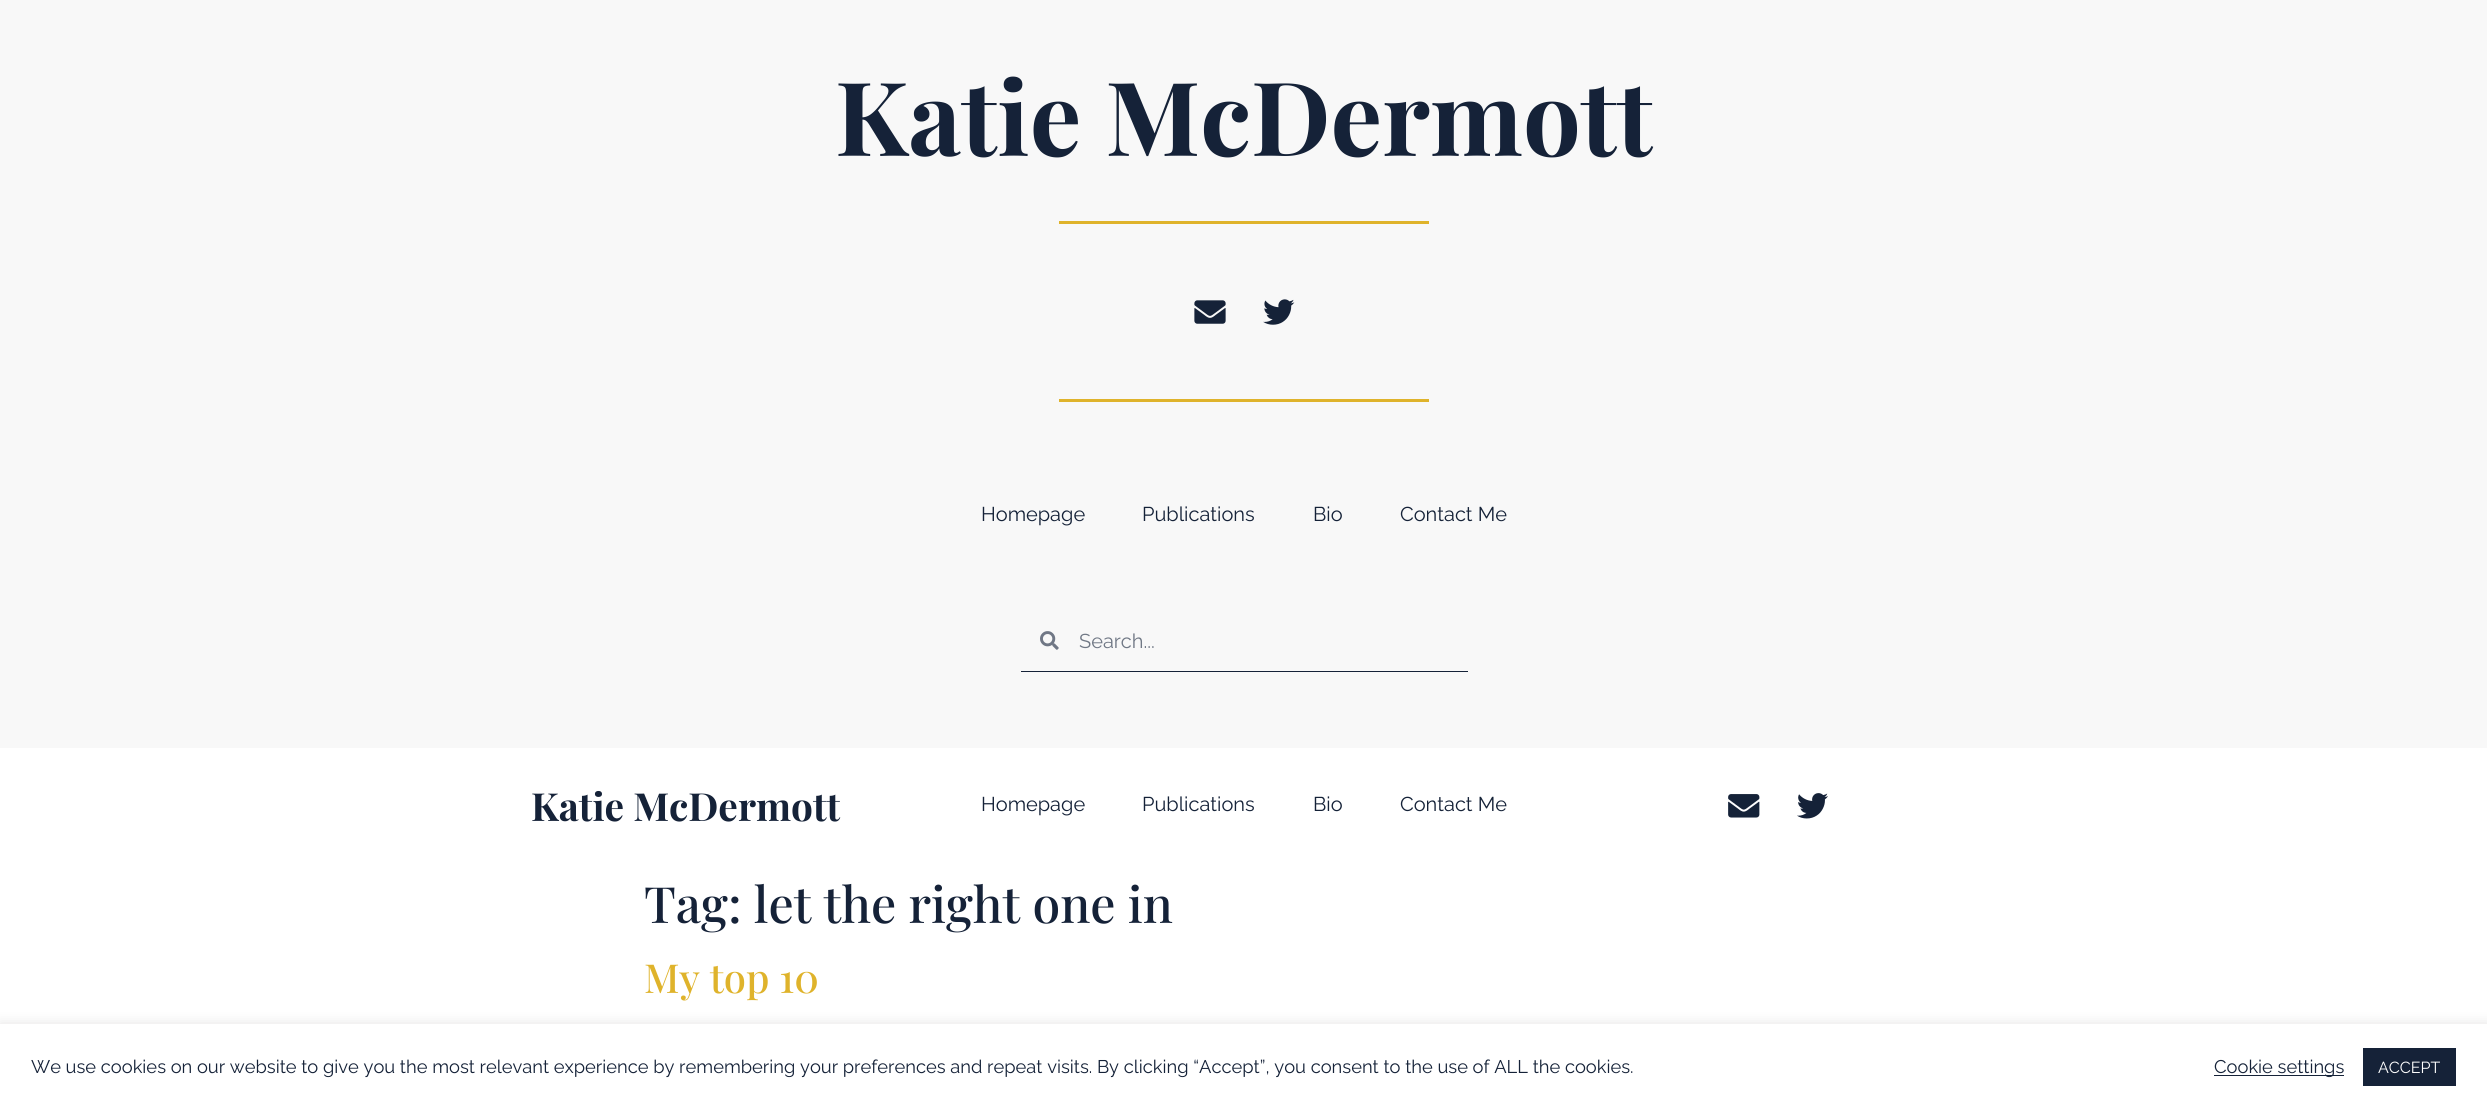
#include <cairo/cairo.h>
#include <math.h>
#include <stddef.h>


static void rounded_rect(cairo_t *cr, double x, double y, double w, double h, double r) {
  cairo_new_sub_path(cr);
  cairo_arc(cr, x + w - r, y + h - r, r, 0, M_PI / 2);
  cairo_arc(cr, x + r, y + h - r, r, M_PI / 2, M_PI);
  cairo_arc(cr, x + r, y + r, r, M_PI, 1.5 * M_PI);
  cairo_arc(cr, x + w - r, y + r, r, 1.5 * M_PI, 2 * M_PI);
  cairo_close_path(cr);
}

static void draw_shadow(cairo_t *cr, double x, double y, double w, double h, double r, double blur, double alpha) {
  cairo_push_group_with_content(cr, CAIRO_CONTENT_ALPHA);
  cairo_set_operator(cr, CAIRO_OPERATOR_SOURCE);
  for (int i = 15; i >= -15 && fmin(w, h) + blur * i / 3 > 0; i -= 2) {
    double e = blur * i / 6;
    cairo_set_source_rgba(cr, 0, 0, 0, alpha * erfc((i - 1) / 8.5) / 2);
    rounded_rect(cr, x - e, y - e, w + 2 * e, h + 2 * e, fmax(0, fmin(r + e + blur * .6, fmin(w, h) / 2 + e)));
    cairo_fill(cr);
  }
  cairo_pattern_t *soft = cairo_pop_group(cr);
  cairo_mask(cr, soft);
  cairo_pattern_destroy(soft);
}

static void draw_image(cairo_t *cr, const char *path, double x, double y, double w, double h) {
  cairo_surface_t *image = cairo_image_surface_create_from_png(path);
  cairo_save(cr);
  cairo_set_source_surface(cr, image, x, y);
  cairo_rectangle(cr, x, y, w, h);
  cairo_fill(cr);
  cairo_restore(cr);
  cairo_surface_destroy(image);
}

static void draw(cairo_t *cr) {
  cairo_set_source_rgb(cr, 1, 1, 1);
  cairo_paint(cr);
  cairo_set_source_rgb(cr, 248 / 255.0, 248 / 255.0, 248 / 255.0);
  cairo_rectangle(cr, 0, 0, 2487, 748);
  cairo_fill(cr);
  cairo_set_source_rgb(cr, 223 / 255.0, 179 / 255.0, 43 / 255.0);
  cairo_rectangle(cr, 1059, 221, 370, 3);
  cairo_fill(cr);
  draw_image(cr, "images/1.png", 1194, 300, 32, 24);
  draw_image(cr, "images/2.png", 1263, 299, 32, 26);
  cairo_rectangle(cr, 1059, 399, 370, 3);
  cairo_fill(cr);
  cairo_set_source_rgb(cr, 21 / 255.0, 34 / 255.0, 56 / 255.0);
  cairo_rectangle(cr, 1021, 671, 447, 1);
  cairo_fill(cr);
  draw_image(cr, "images/3.png", 1040, 631, 19, 19);
  draw_image(cr, "images/4.png", 1728, 794, 32, 24);
  draw_image(cr, "images/5.png", 1797, 793, 31, 26);
  cairo_set_source_rgb(cr, 172 / 255.0, 171 / 255.0, 171 / 255.0);
  draw_shadow(cr, 0, 1023, 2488, 86, 0, 6, 0.3);
  cairo_set_source_rgb(cr, 1, 1, 1);
  cairo_rectangle(cr, 0, 1024, 2487, 85);
  cairo_fill(cr);
  cairo_set_source_rgb(cr, 21 / 255.0, 34 / 255.0, 56 / 255.0);
  cairo_rectangle(cr, 2214, 1075, 130, 1);
  cairo_fill(cr);
  cairo_rectangle(cr, 2363, 1048, 93, 38);
  cairo_fill(cr);
  cairo_select_font_face(cr, "Playfair Display", CAIRO_FONT_SLANT_NORMAL, CAIRO_FONT_WEIGHT_BOLD);
  cairo_set_font_size(cr, 102.5);
  cairo_move_to(cr, 835, 156);
  cairo_show_text(cr, "Katie McDermott");
  cairo_select_font_face(cr, "Raleway", CAIRO_FONT_SLANT_NORMAL, CAIRO_FONT_WEIGHT_NORMAL);
  cairo_set_font_size(cr, 20);
  cairo_move_to(cr, 981, 521);
  cairo_show_text(cr, "Homepage");
  cairo_move_to(cr, 1142, 521);
  cairo_show_text(cr, "Publications");
  cairo_move_to(cr, 1313, 521);
  cairo_show_text(cr, "Bio");
  cairo_move_to(cr, 1400, 521);
  cairo_show_text(cr, "Contact Me");
  cairo_set_source_rgb(cr, 112 / 255.0, 120 / 255.0, 133 / 255.0);
  cairo_move_to(cr, 1079, 648);
  cairo_show_text(cr, "Search...");
  cairo_select_font_face(cr, "Playfair Display", CAIRO_FONT_SLANT_NORMAL, CAIRO_FONT_WEIGHT_BOLD);
  cairo_set_font_size(cr, 38.75);
  cairo_set_source_rgb(cr, 21 / 255.0, 34 / 255.0, 56 / 255.0);
  cairo_move_to(cr, 531, 821);
  cairo_show_text(cr, "Katie McDermott");
  cairo_select_font_face(cr, "Raleway", CAIRO_FONT_SLANT_NORMAL, CAIRO_FONT_WEIGHT_NORMAL);
  cairo_set_font_size(cr, 20);
  cairo_move_to(cr, 981, 811);
  cairo_show_text(cr, "Homepage");
  cairo_move_to(cr, 1142, 811);
  cairo_show_text(cr, "Publications");
  cairo_move_to(cr, 1313, 811);
  cairo_show_text(cr, "Bio");
  cairo_move_to(cr, 1400, 811);
  cairo_show_text(cr, "Contact Me");
  cairo_select_font_face(cr, "Playfair Display Medium", CAIRO_FONT_SLANT_NORMAL, CAIRO_FONT_WEIGHT_NORMAL);
  cairo_set_font_size(cr, 50);
  cairo_move_to(cr, 644, 923);
  cairo_show_text(cr, "Tag: let the right one in");
  cairo_set_font_size(cr, 40);
  cairo_set_source_rgb(cr, 223 / 255.0, 179 / 255.0, 43 / 255.0);
  cairo_move_to(cr, 644, 993);
  cairo_show_text(cr, "My top 10");
  cairo_select_font_face(cr, "Raleway", CAIRO_FONT_SLANT_NORMAL, CAIRO_FONT_WEIGHT_NORMAL);
  cairo_set_font_size(cr, 18.33);
  cairo_set_source_rgb(cr, 21 / 255.0, 34 / 255.0, 56 / 255.0);
  cairo_move_to(cr, 31, 1073);
  cairo_show_text(cr, "We use cookies on our website to give you the most relevant experience by remembering your preferences and repeat visits. By clicking “Accept”, you consent to the use of ALL the cookies.");
  cairo_move_to(cr, 2214, 1073);
  cairo_show_text(cr, "Cookie settings");
  cairo_set_font_size(cr, 16);
  cairo_set_source_rgb(cr, 1, 1, 1);
  cairo_move_to(cr, 2378, 1073);
  cairo_show_text(cr, "ACCEPT");
}

int main(void) {
  cairo_surface_t *surface = cairo_image_surface_create(CAIRO_FORMAT_RGB24, 2487, 1109);
  cairo_t *cr = cairo_create(surface);
  cairo_font_options_t *options = cairo_font_options_create();
  cairo_font_options_set_hint_metrics(options, CAIRO_HINT_METRICS_OFF);
  cairo_font_options_set_hint_style(options, CAIRO_HINT_STYLE_NONE);
  cairo_set_font_options(cr, options);
  cairo_set_miter_limit(cr, 4);
  draw(cr);
  cairo_surface_write_to_png(surface, "out.png");
  cairo_font_options_destroy(options);
  cairo_destroy(cr);
  cairo_surface_destroy(surface);
  return 0;
}
